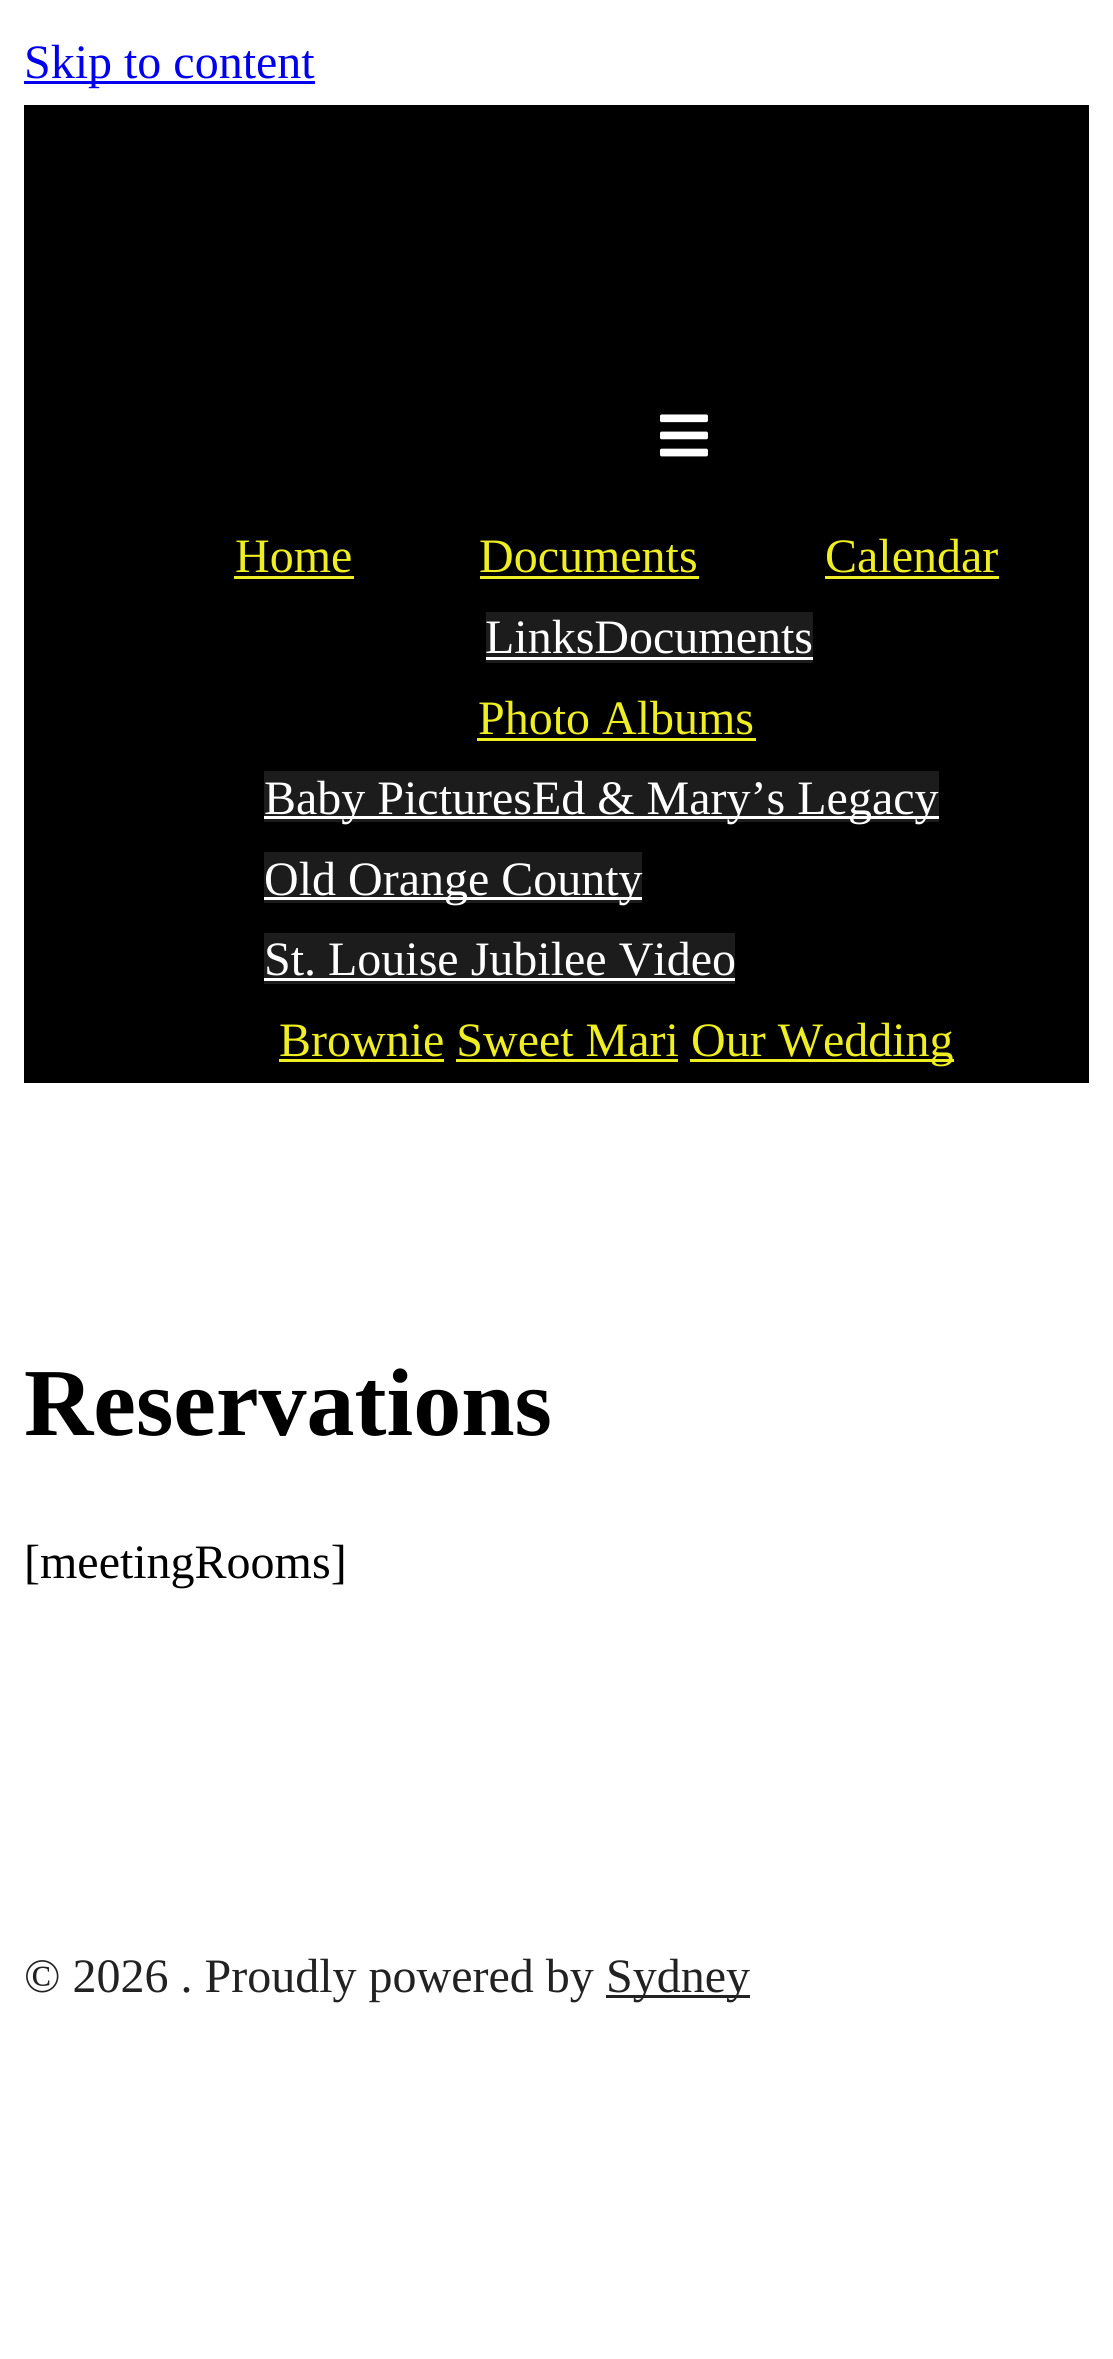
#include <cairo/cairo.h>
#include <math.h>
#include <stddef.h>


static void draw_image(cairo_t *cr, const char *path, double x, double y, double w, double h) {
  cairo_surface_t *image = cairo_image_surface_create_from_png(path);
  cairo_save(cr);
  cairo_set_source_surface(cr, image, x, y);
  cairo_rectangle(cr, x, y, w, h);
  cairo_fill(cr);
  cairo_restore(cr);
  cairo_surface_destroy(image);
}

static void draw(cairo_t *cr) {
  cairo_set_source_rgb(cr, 1, 1, 1);
  cairo_paint(cr);
  cairo_set_source_rgb(cr, 0, 0, 238 / 255.0);
  cairo_rectangle(cr, 24, 81, 291, 3);
  cairo_fill(cr);
  cairo_set_source_rgb(cr, 0, 0, 0);
  cairo_rectangle(cr, 24, 105, 1065, 978);
  cairo_fill(cr);
  draw_image(cr, "images/1.png", 660, 414, 48, 43);
  cairo_set_source_rgb(cr, 238 / 255.0, 238 / 255.0, 34 / 255.0);
  cairo_rectangle(cr, 234, 576, 120, 3);
  cairo_fill(cr);
  cairo_rectangle(cr, 480, 576, 219, 3);
  cairo_fill(cr);
  cairo_set_source_rgb(cr, 28 / 255.0, 28 / 255.0, 28 / 255.0);
  cairo_rectangle(cr, 486, 612, 327, 51);
  cairo_fill(cr);
  cairo_set_source_rgb(cr, 1, 1, 1);
  cairo_rectangle(cr, 486, 657, 327, 3);
  cairo_fill(cr);
  cairo_set_source_rgb(cr, 238 / 255.0, 238 / 255.0, 34 / 255.0);
  cairo_rectangle(cr, 825, 576, 174, 3);
  cairo_fill(cr);
  cairo_rectangle(cr, 477, 738, 279, 3);
  cairo_fill(cr);
  cairo_set_source_rgb(cr, 28 / 255.0, 28 / 255.0, 28 / 255.0);
  cairo_rectangle(cr, 264, 771, 675, 51);
  cairo_fill(cr);
  cairo_set_source_rgb(cr, 1, 1, 1);
  cairo_rectangle(cr, 264, 816, 675, 3);
  cairo_fill(cr);
  cairo_set_source_rgb(cr, 28 / 255.0, 28 / 255.0, 28 / 255.0);
  cairo_rectangle(cr, 264, 852, 378, 51);
  cairo_fill(cr);
  cairo_set_source_rgb(cr, 1, 1, 1);
  cairo_rectangle(cr, 264, 897, 378, 3);
  cairo_fill(cr);
  cairo_set_source_rgb(cr, 28 / 255.0, 28 / 255.0, 28 / 255.0);
  cairo_rectangle(cr, 264, 933, 471, 51);
  cairo_fill(cr);
  cairo_set_source_rgb(cr, 1, 1, 1);
  cairo_rectangle(cr, 264, 978, 471, 3);
  cairo_fill(cr);
  cairo_set_source_rgb(cr, 238 / 255.0, 238 / 255.0, 34 / 255.0);
  cairo_rectangle(cr, 279, 1059, 165, 3);
  cairo_fill(cr);
  cairo_rectangle(cr, 690, 1059, 264, 3);
  cairo_fill(cr);
  cairo_rectangle(cr, 456, 1059, 222, 3);
  cairo_fill(cr);
  cairo_set_source_rgb(cr, 34 / 255.0, 34 / 255.0, 34 / 255.0);
  cairo_rectangle(cr, 606, 1995, 144, 3);
  cairo_fill(cr);
  cairo_select_font_face(cr, "Liberation Serif", CAIRO_FONT_SLANT_NORMAL, CAIRO_FONT_WEIGHT_NORMAL);
  cairo_set_font_size(cr, 48);
  cairo_set_source_rgb(cr, 0, 0, 238 / 255.0);
  cairo_move_to(cr, 24, 78);
  cairo_show_text(cr, "Skip to content");
  cairo_set_source_rgb(cr, 238 / 255.0, 238 / 255.0, 34 / 255.0);
  cairo_move_to(cr, 235, 572);
  cairo_show_text(cr, "Home");
  cairo_move_to(cr, 479, 572);
  cairo_show_text(cr, "Documents");
  cairo_set_source_rgb(cr, 1, 1, 1);
  cairo_move_to(cr, 485, 653);
  cairo_show_text(cr, "LinksDocuments");
  cairo_set_source_rgb(cr, 238 / 255.0, 238 / 255.0, 34 / 255.0);
  cairo_move_to(cr, 825, 572);
  cairo_show_text(cr, "Calendar");
  cairo_move_to(cr, 478, 734);
  cairo_show_text(cr, "Photo Albums");
  cairo_set_source_rgb(cr, 1, 1, 1);
  cairo_move_to(cr, 264, 814);
  cairo_show_text(cr, "Baby PicturesEd & Mary’s Legacy");
  cairo_move_to(cr, 264, 895);
  cairo_show_text(cr, "Old Orange County");
  cairo_move_to(cr, 264, 975);
  cairo_show_text(cr, "St. Louise Jubilee Video");
  cairo_set_source_rgb(cr, 238 / 255.0, 238 / 255.0, 34 / 255.0);
  cairo_move_to(cr, 279, 1056);
  cairo_show_text(cr, "Brownie Sweet Mari");
  cairo_move_to(cr, 691, 1056);
  cairo_show_text(cr, "Our Wedding");
  cairo_select_font_face(cr, "Liberation Serif", CAIRO_FONT_SLANT_NORMAL, CAIRO_FONT_WEIGHT_BOLD);
  cairo_set_font_size(cr, 96);
  cairo_set_source_rgb(cr, 0, 0, 0);
  cairo_move_to(cr, 24, 1435);
  cairo_show_text(cr, "Reservations");
  cairo_select_font_face(cr, "Liberation Serif", CAIRO_FONT_SLANT_NORMAL, CAIRO_FONT_WEIGHT_NORMAL);
  cairo_set_font_size(cr, 48);
  cairo_move_to(cr, 24, 1578);
  cairo_show_text(cr, "[meetingRooms]");
  cairo_set_source_rgb(cr, 34 / 255.0, 34 / 255.0, 34 / 255.0);
  cairo_move_to(cr, 24, 1992);
  cairo_show_text(cr, "© 2026 . Proudly powered by");
  cairo_move_to(cr, 606, 1992);
  cairo_show_text(cr, "Sydney");
}

int main(void) {
  cairo_surface_t *surface = cairo_image_surface_create(CAIRO_FORMAT_RGB24, 1113, 2359);
  cairo_t *cr = cairo_create(surface);
  cairo_font_options_t *options = cairo_font_options_create();
  cairo_font_options_set_hint_metrics(options, CAIRO_HINT_METRICS_OFF);
  cairo_font_options_set_hint_style(options, CAIRO_HINT_STYLE_NONE);
  cairo_set_font_options(cr, options);
  cairo_set_miter_limit(cr, 4);
  draw(cr);
  cairo_surface_write_to_png(surface, "out.png");
  cairo_font_options_destroy(options);
  cairo_destroy(cr);
  cairo_surface_destroy(surface);
  return 0;
}
